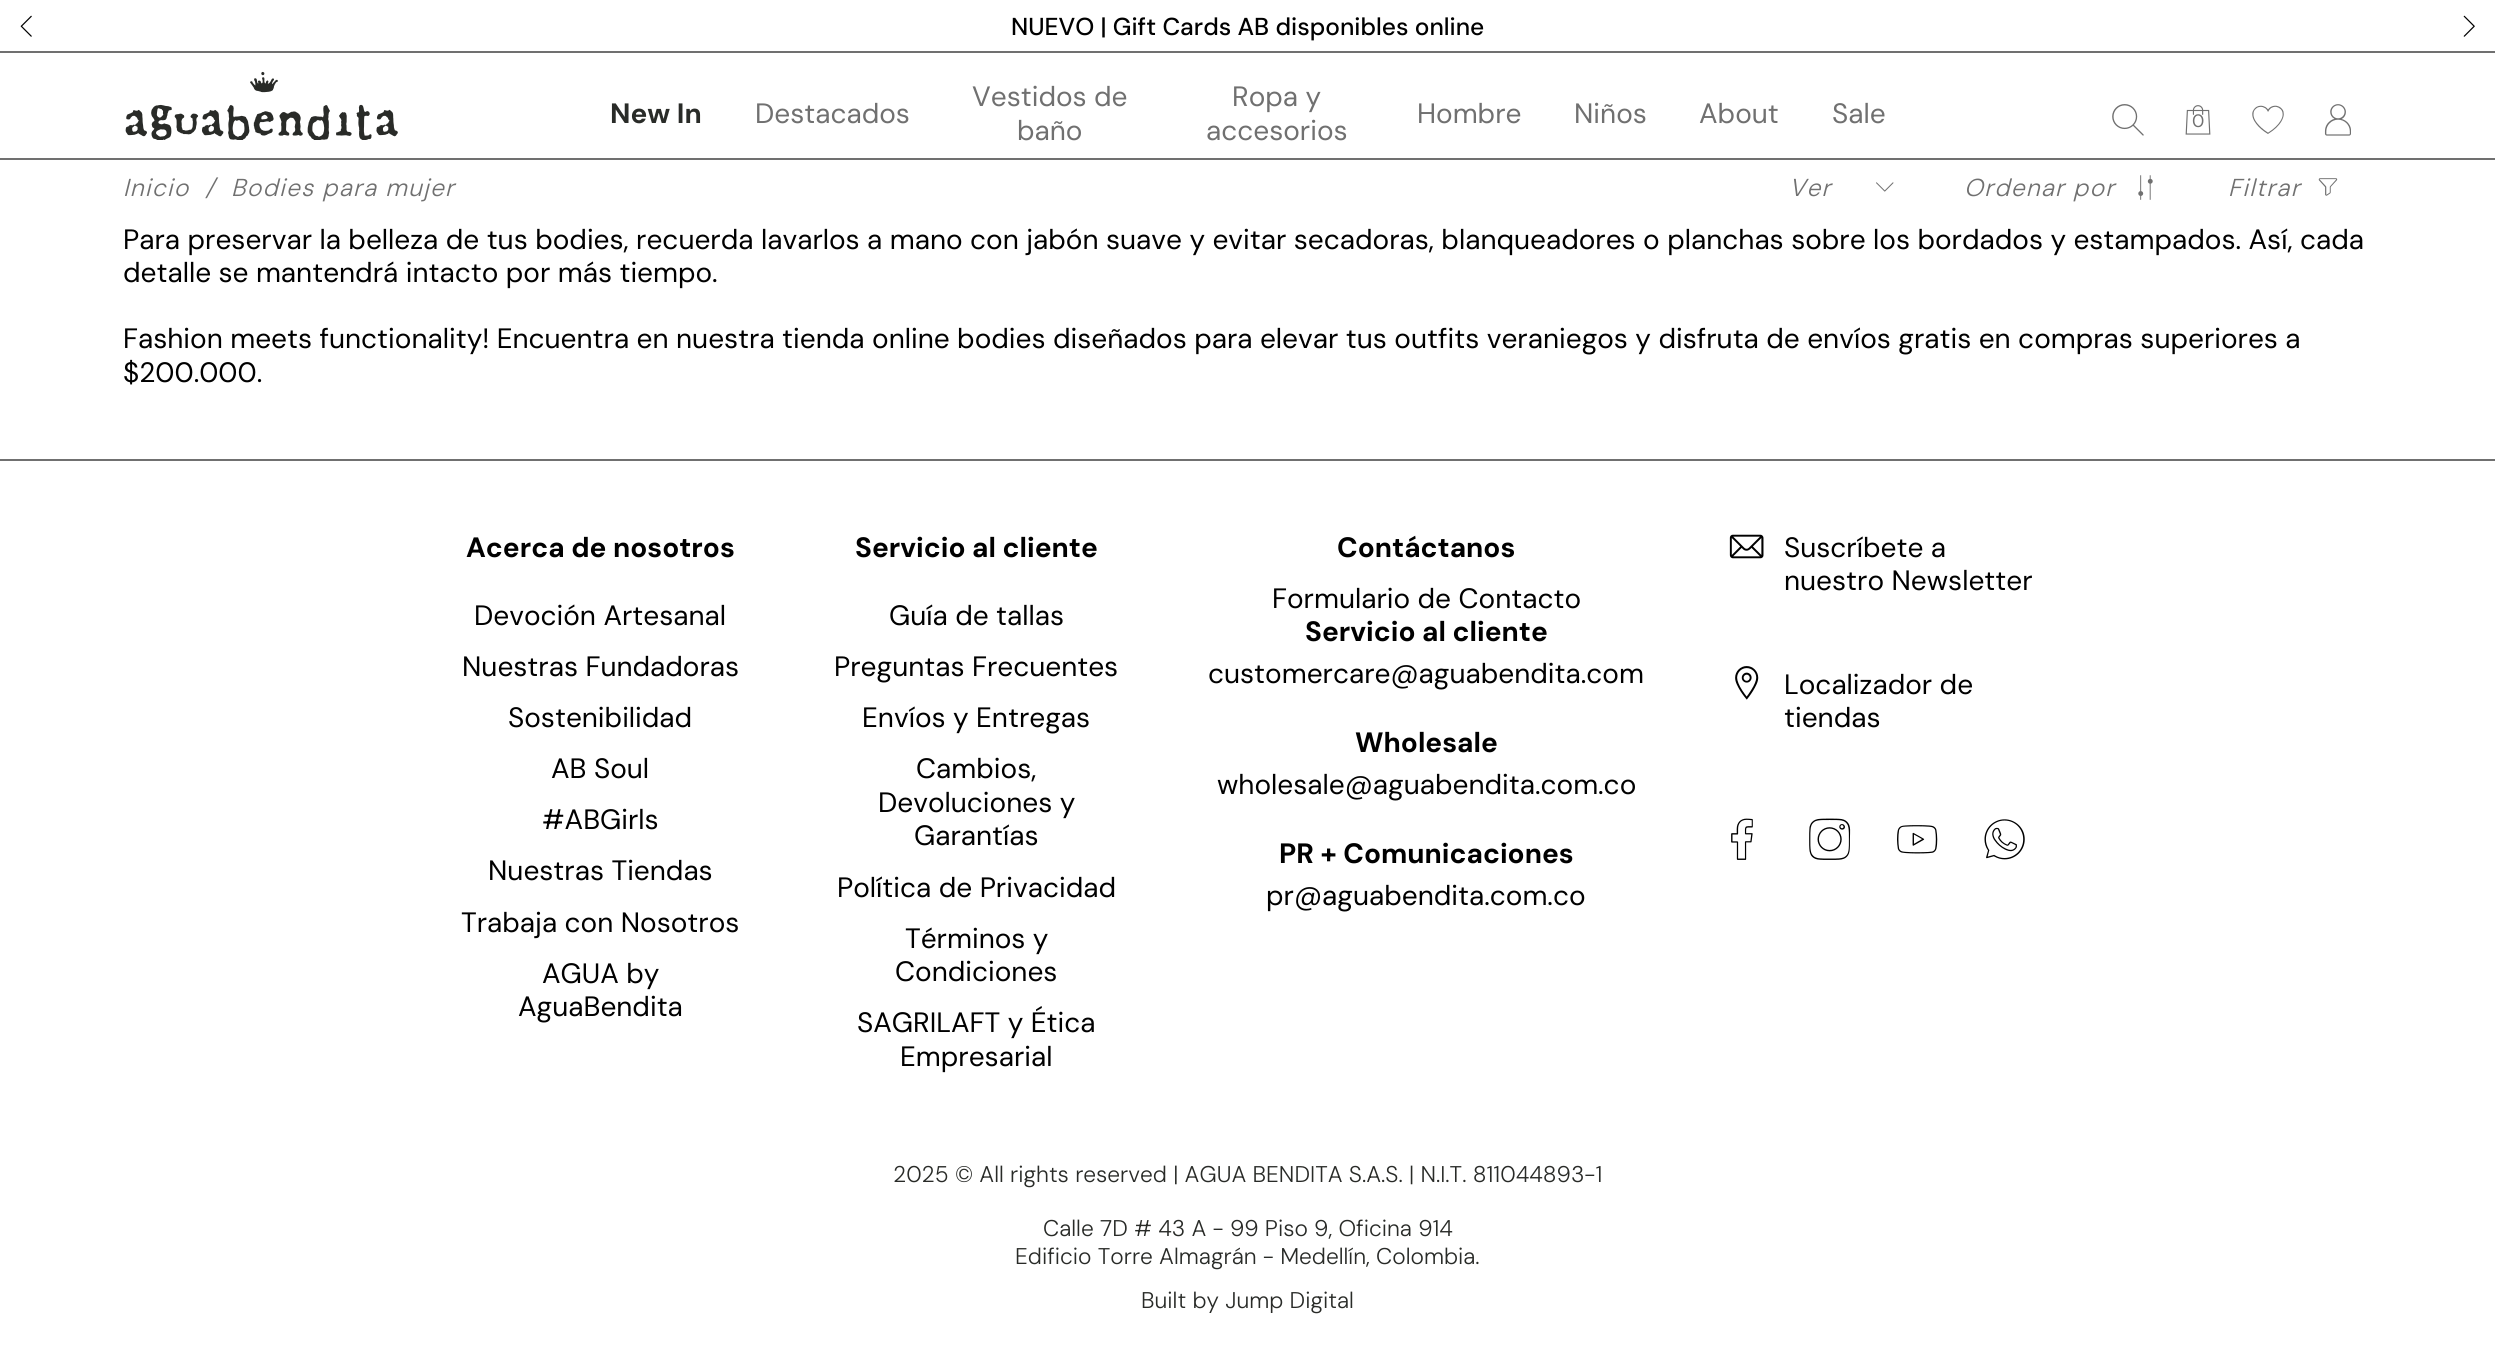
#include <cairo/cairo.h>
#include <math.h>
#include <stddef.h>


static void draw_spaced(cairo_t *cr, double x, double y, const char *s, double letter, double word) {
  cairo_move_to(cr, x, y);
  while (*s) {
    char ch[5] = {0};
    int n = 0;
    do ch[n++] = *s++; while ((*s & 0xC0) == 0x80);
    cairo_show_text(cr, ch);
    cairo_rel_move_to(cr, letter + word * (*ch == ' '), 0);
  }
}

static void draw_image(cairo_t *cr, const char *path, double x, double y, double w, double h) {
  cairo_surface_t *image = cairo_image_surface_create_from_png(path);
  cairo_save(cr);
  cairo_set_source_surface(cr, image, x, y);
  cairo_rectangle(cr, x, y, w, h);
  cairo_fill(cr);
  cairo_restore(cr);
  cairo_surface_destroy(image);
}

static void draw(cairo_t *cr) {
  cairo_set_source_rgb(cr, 1, 1, 1);
  cairo_paint(cr);
  cairo_set_source_rgb(cr, 112 / 255.0, 112 / 255.0, 112 / 255.0);
  cairo_rectangle(cr, 0, 158, 2495, 2);
  cairo_fill(cr);
  cairo_rectangle(cr, 0, 51, 2495, 2);
  cairo_fill(cr);
  draw_image(cr, "images/1.png", 20, 15, 12, 22);
  draw_image(cr, "images/2.png", 2463, 15, 12, 22);
  draw_image(cr, "images/3.png", 125, 71, 273, 69);
  draw_image(cr, "images/4.png", 2112, 104, 32, 32);
  draw_image(cr, "images/5.png", 2185, 105, 26, 30);
  draw_image(cr, "images/6.png", 2252, 105, 32, 29);
  draw_image(cr, "images/7.png", 2324, 104, 27, 32);
  draw_image(cr, "images/8.png", 1876, 182, 18, 10);
  draw_image(cr, "images/9.png", 2138, 175, 15, 25);
  draw_image(cr, "images/10.png", 2318, 178, 20, 18);
  cairo_rectangle(cr, 0, 459, 2495, 2);
  cairo_fill(cr);
  draw_image(cr, "images/11.png", 1729, 534, 35, 25);
  draw_image(cr, "images/12.png", 1735, 666, 24, 34);
  draw_image(cr, "images/13.png", 1731, 818, 22, 42);
  draw_image(cr, "images/14.png", 1809, 818, 42, 42);
  draw_image(cr, "images/15.png", 1897, 825, 41, 29);
  draw_image(cr, "images/16.png", 1984, 819, 41, 41);
  cairo_select_font_face(cr, "DM Sans Medium", CAIRO_FONT_SLANT_NORMAL, CAIRO_FONT_WEIGHT_NORMAL);
  cairo_set_font_size(cr, 24.5);
  cairo_set_source_rgb(cr, 0, 0, 0);
  cairo_move_to(cr, 1011, 35);
  cairo_show_text(cr, "NUEVO | Gift Cards AB disponibles online");
  cairo_select_font_face(cr, "DM Sans", CAIRO_FONT_SLANT_NORMAL, CAIRO_FONT_WEIGHT_BOLD);
  cairo_set_font_size(cr, 28);
  cairo_set_source_rgb(cr, 41 / 255.0, 43 / 255.0, 40 / 255.0);
  cairo_move_to(cr, 610, 123);
  cairo_show_text(cr, "New In");
  cairo_select_font_face(cr, "DM Sans", CAIRO_FONT_SLANT_NORMAL, CAIRO_FONT_WEIGHT_NORMAL);
  cairo_set_source_rgb(cr, 112 / 255.0, 112 / 255.0, 112 / 255.0);
  cairo_move_to(cr, 755, 123);
  cairo_show_text(cr, "Destacados");
  cairo_move_to(cr, 972, 106);
  cairo_show_text(cr, "Vestidos de");
  cairo_move_to(cr, 1017, 140);
  cairo_show_text(cr, "baño");
  cairo_move_to(cr, 1232, 106);
  cairo_show_text(cr, "Ropa y");
  cairo_move_to(cr, 1206, 140);
  cairo_show_text(cr, "accesorios");
  cairo_move_to(cr, 1417, 123);
  cairo_show_text(cr, "Hombre");
  cairo_move_to(cr, 1574, 123);
  cairo_show_text(cr, "Niños");
  cairo_move_to(cr, 1699, 123);
  cairo_show_text(cr, "About");
  cairo_move_to(cr, 1832, 123);
  cairo_show_text(cr, "Sale");
  cairo_set_font_size(cr, 18);
  cairo_move_to(cr, 2192, 127);
  cairo_show_text(cr, "0");
  cairo_select_font_face(cr, "DM Sans Light", CAIRO_FONT_SLANT_ITALIC, CAIRO_FONT_WEIGHT_NORMAL);
  cairo_set_font_size(cr, 24.5);
  draw_spaced(cr, 123, 196, "Inicio", 1.25, 0);
  draw_spaced(cr, 205, 196, "/", 1.25, 0);
  draw_spaced(cr, 231, 196, "Bodies para mujer", 1.25, 0);
  draw_spaced(cr, 1789, 196, "Ver", 1.25, 0);
  draw_spaced(cr, 1964, 196, "Ordenar por", 1.25, 0);
  draw_spaced(cr, 2228, 196, "Filtrar", 1.25, 0);
  cairo_select_font_face(cr, "DM Sans", CAIRO_FONT_SLANT_NORMAL, CAIRO_FONT_WEIGHT_NORMAL);
  cairo_set_font_size(cr, 28);
  cairo_set_source_rgb(cr, 0, 0, 0);
  cairo_move_to(cr, 123, 249);
  cairo_show_text(cr, "Para preservar la belleza de tus bodies, recuerda lavarlos a mano con jabón suave y evitar secadoras, blanqueadores o planchas sobre los bordados y estampados. Así, cada");
  cairo_move_to(cr, 123, 282);
  cairo_show_text(cr, "detalle se mantendrá intacto por más tiempo.");
  cairo_move_to(cr, 123, 348);
  cairo_show_text(cr, "Fashion meets functionality! Encuentra en nuestra tienda online bodies diseñados para elevar tus outfits veraniegos y disfruta de envíos gratis en compras superiores a");
  cairo_move_to(cr, 123, 382);
  cairo_show_text(cr, "$200.000.");
  cairo_select_font_face(cr, "DM Sans", CAIRO_FONT_SLANT_NORMAL, CAIRO_FONT_WEIGHT_BOLD);
  cairo_move_to(cr, 466, 557);
  cairo_show_text(cr, "Acerca de nosotros");
  cairo_select_font_face(cr, "DM Sans", CAIRO_FONT_SLANT_NORMAL, CAIRO_FONT_WEIGHT_NORMAL);
  cairo_move_to(cr, 474, 625);
  cairo_show_text(cr, "Devoción Artesanal");
  cairo_move_to(cr, 462, 676);
  cairo_show_text(cr, "Nuestras Fundadoras");
  cairo_move_to(cr, 508, 727);
  cairo_show_text(cr, "Sostenibilidad");
  cairo_move_to(cr, 551, 778);
  cairo_show_text(cr, "AB Soul");
  cairo_move_to(cr, 542, 829);
  cairo_show_text(cr, "#ABGirls");
  cairo_move_to(cr, 488, 880);
  cairo_show_text(cr, "Nuestras Tiendas");
  cairo_move_to(cr, 461, 932);
  cairo_show_text(cr, "Trabaja con Nosotros");
  cairo_move_to(cr, 542, 983);
  cairo_show_text(cr, "AGUA by");
  cairo_move_to(cr, 518, 1016);
  cairo_show_text(cr, "AguaBendita");
  cairo_select_font_face(cr, "DM Sans", CAIRO_FONT_SLANT_NORMAL, CAIRO_FONT_WEIGHT_BOLD);
  cairo_move_to(cr, 855, 557);
  cairo_show_text(cr, "Servicio al cliente");
  cairo_select_font_face(cr, "DM Sans", CAIRO_FONT_SLANT_NORMAL, CAIRO_FONT_WEIGHT_NORMAL);
  cairo_move_to(cr, 889, 625);
  cairo_show_text(cr, "Guía de tallas");
  cairo_move_to(cr, 834, 676);
  cairo_show_text(cr, "Preguntas Frecuentes");
  cairo_move_to(cr, 862, 727);
  cairo_show_text(cr, "Envíos y Entregas");
  cairo_move_to(cr, 916, 778);
  cairo_show_text(cr, "Cambios,");
  cairo_move_to(cr, 878, 812);
  cairo_show_text(cr, "Devoluciones y");
  cairo_move_to(cr, 914, 845);
  cairo_show_text(cr, "Garantías");
  cairo_move_to(cr, 837, 897);
  cairo_show_text(cr, "Política de Privacidad");
  cairo_move_to(cr, 905, 948);
  cairo_show_text(cr, "Términos y");
  cairo_move_to(cr, 895, 981);
  cairo_show_text(cr, "Condiciones");
  cairo_move_to(cr, 857, 1032);
  cairo_show_text(cr, "SAGRILAFT y Ética");
  cairo_move_to(cr, 900, 1066);
  cairo_show_text(cr, "Empresarial");
  cairo_select_font_face(cr, "DM Sans", CAIRO_FONT_SLANT_NORMAL, CAIRO_FONT_WEIGHT_BOLD);
  cairo_move_to(cr, 1337, 557);
  cairo_show_text(cr, "Contáctanos");
  cairo_select_font_face(cr, "DM Sans", CAIRO_FONT_SLANT_NORMAL, CAIRO_FONT_WEIGHT_NORMAL);
  cairo_move_to(cr, 1272, 608);
  cairo_show_text(cr, "Formulario de Contacto");
  cairo_select_font_face(cr, "DM Sans", CAIRO_FONT_SLANT_NORMAL, CAIRO_FONT_WEIGHT_BOLD);
  cairo_move_to(cr, 1305, 641);
  cairo_show_text(cr, "Servicio al cliente");
  cairo_select_font_face(cr, "DM Sans", CAIRO_FONT_SLANT_NORMAL, CAIRO_FONT_WEIGHT_NORMAL);
  cairo_move_to(cr, 1208, 683);
  cairo_show_text(cr, "customercare@aguabendita.com");
  cairo_select_font_face(cr, "DM Sans", CAIRO_FONT_SLANT_NORMAL, CAIRO_FONT_WEIGHT_BOLD);
  cairo_move_to(cr, 1355, 752);
  cairo_show_text(cr, "Wholesale");
  cairo_select_font_face(cr, "DM Sans", CAIRO_FONT_SLANT_NORMAL, CAIRO_FONT_WEIGHT_NORMAL);
  cairo_move_to(cr, 1217, 794);
  cairo_show_text(cr, "wholesale@aguabendita.com.co");
  cairo_select_font_face(cr, "DM Sans", CAIRO_FONT_SLANT_NORMAL, CAIRO_FONT_WEIGHT_BOLD);
  cairo_move_to(cr, 1279, 863);
  cairo_show_text(cr, "PR + Comunicaciones");
  cairo_select_font_face(cr, "DM Sans", CAIRO_FONT_SLANT_NORMAL, CAIRO_FONT_WEIGHT_NORMAL);
  cairo_move_to(cr, 1266, 905);
  cairo_show_text(cr, "pr@aguabendita.com.co");
  cairo_move_to(cr, 1784, 557);
  cairo_show_text(cr, "Suscríbete a");
  cairo_move_to(cr, 1784, 590);
  cairo_show_text(cr, "nuestro Newsletter");
  cairo_move_to(cr, 1784, 694);
  cairo_show_text(cr, "Localizador de");
  cairo_move_to(cr, 1784, 727);
  cairo_show_text(cr, "tiendas");
  cairo_select_font_face(cr, "DM Sans Light", CAIRO_FONT_SLANT_NORMAL, CAIRO_FONT_WEIGHT_NORMAL);
  cairo_set_font_size(cr, 22.75);
  cairo_set_source_rgb(cr, 41 / 255.0, 43 / 255.0, 40 / 255.0);
  cairo_move_to(cr, 893, 1182);
  cairo_show_text(cr, "2025 © All rights reserved | AGUA BENDITA S.A.S. | N.I.T. 811044893-1");
  cairo_move_to(cr, 1043, 1236);
  cairo_show_text(cr, "Calle 7D # 43 A - 99 Piso 9, Oficina 914");
  cairo_move_to(cr, 1015, 1264);
  cairo_show_text(cr, "Edificio Torre Almagrán - Medellín, Colombia.");
  cairo_move_to(cr, 1141, 1308);
  cairo_show_text(cr, "Built by Jump Digital");
}

int main(void) {
  cairo_surface_t *surface = cairo_image_surface_create(CAIRO_FORMAT_RGB24, 2495, 1349);
  cairo_t *cr = cairo_create(surface);
  cairo_font_options_t *options = cairo_font_options_create();
  cairo_font_options_set_hint_metrics(options, CAIRO_HINT_METRICS_OFF);
  cairo_font_options_set_hint_style(options, CAIRO_HINT_STYLE_NONE);
  cairo_set_font_options(cr, options);
  cairo_set_miter_limit(cr, 4);
  draw(cr);
  cairo_surface_write_to_png(surface, "out.png");
  cairo_font_options_destroy(options);
  cairo_destroy(cr);
  cairo_surface_destroy(surface);
  return 0;
}
